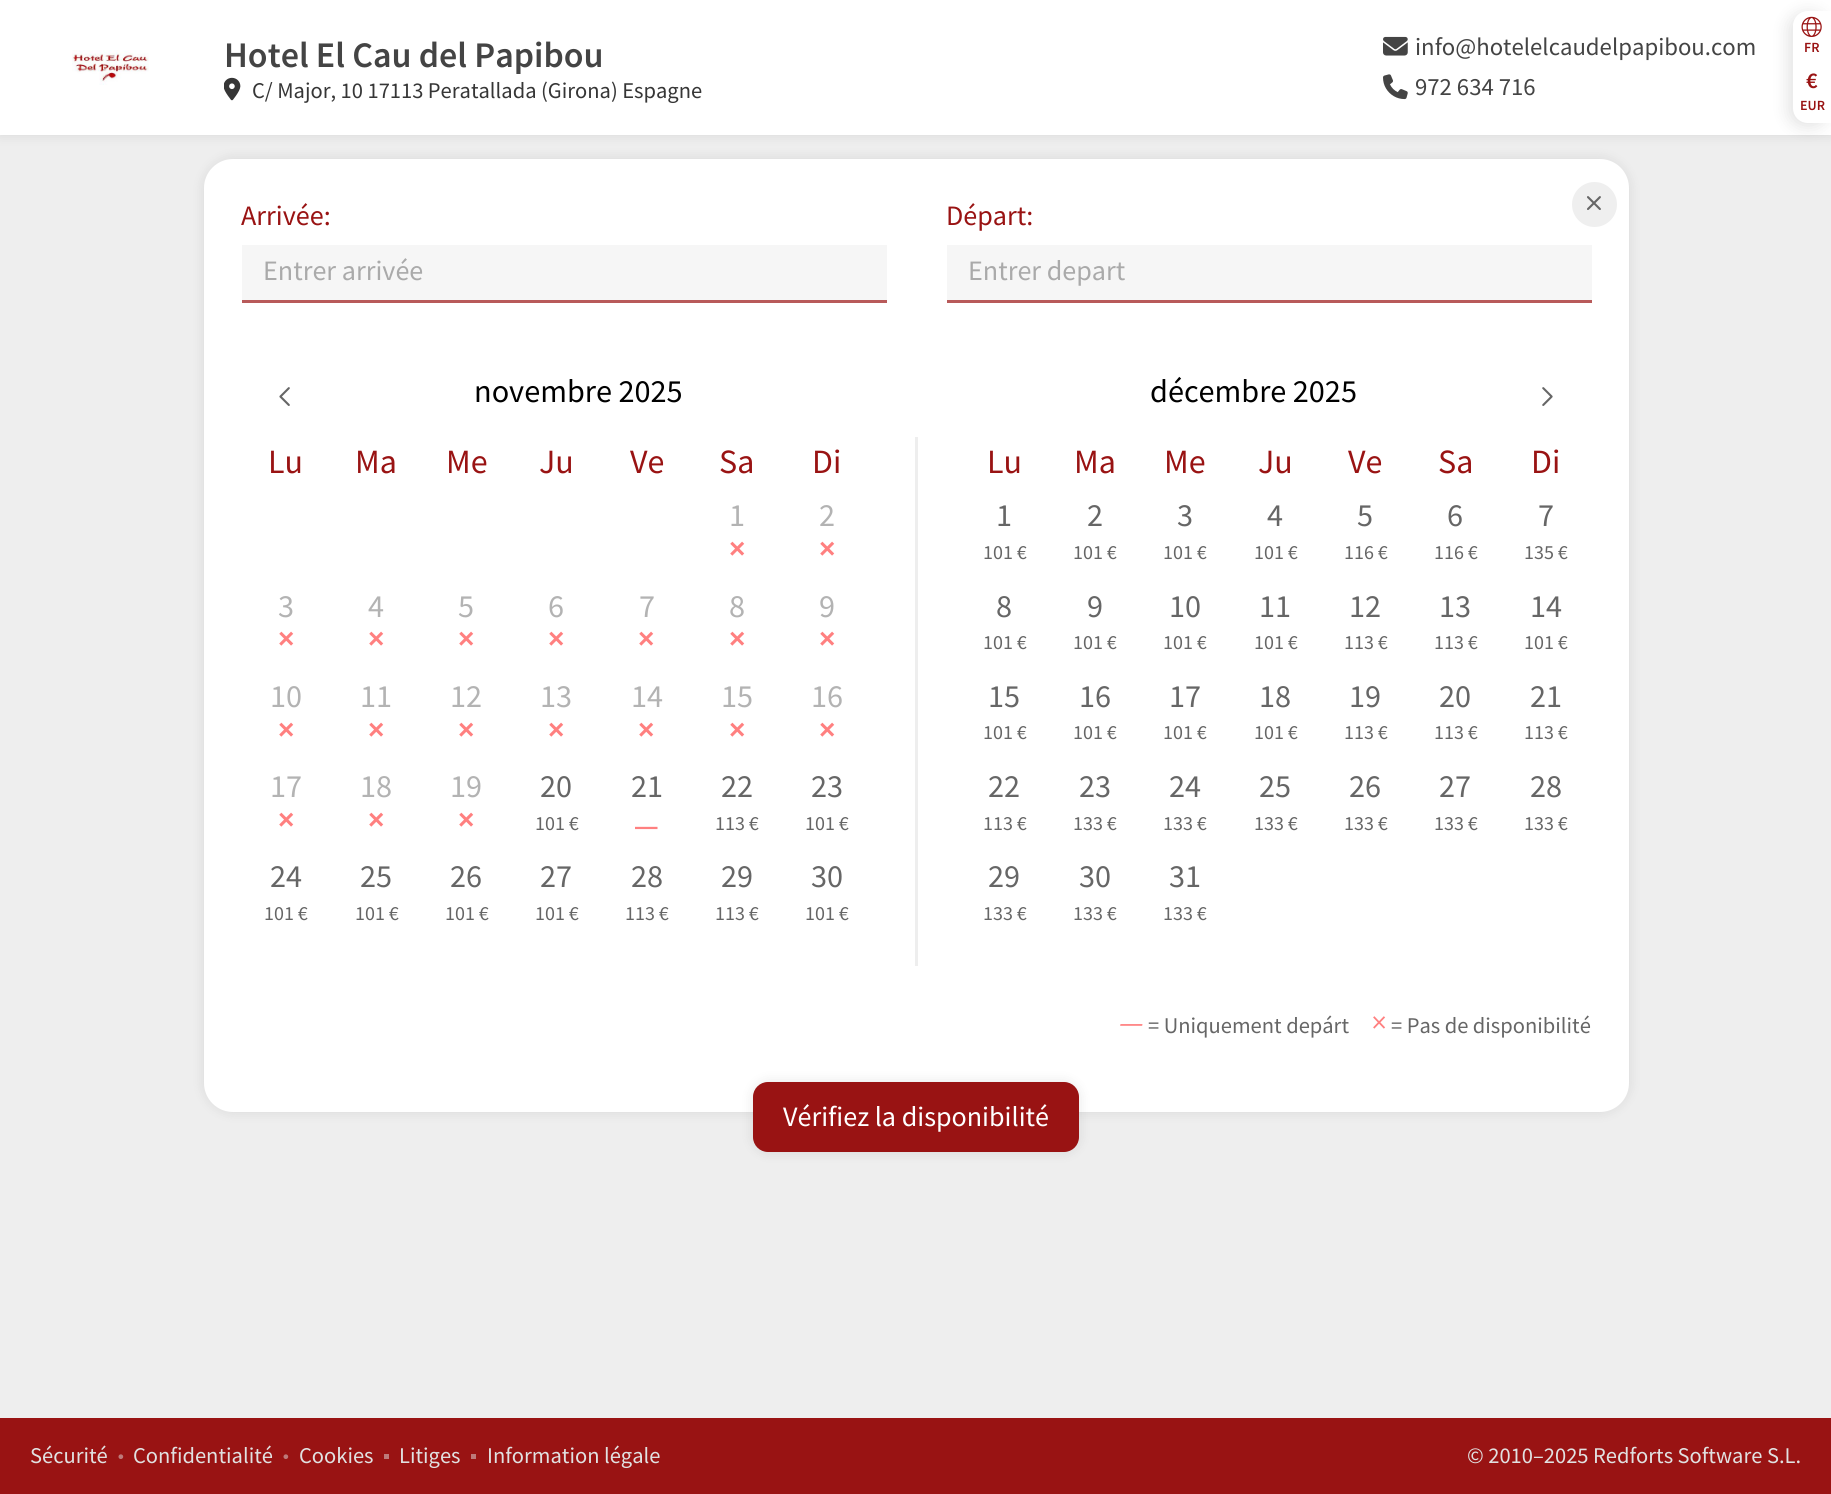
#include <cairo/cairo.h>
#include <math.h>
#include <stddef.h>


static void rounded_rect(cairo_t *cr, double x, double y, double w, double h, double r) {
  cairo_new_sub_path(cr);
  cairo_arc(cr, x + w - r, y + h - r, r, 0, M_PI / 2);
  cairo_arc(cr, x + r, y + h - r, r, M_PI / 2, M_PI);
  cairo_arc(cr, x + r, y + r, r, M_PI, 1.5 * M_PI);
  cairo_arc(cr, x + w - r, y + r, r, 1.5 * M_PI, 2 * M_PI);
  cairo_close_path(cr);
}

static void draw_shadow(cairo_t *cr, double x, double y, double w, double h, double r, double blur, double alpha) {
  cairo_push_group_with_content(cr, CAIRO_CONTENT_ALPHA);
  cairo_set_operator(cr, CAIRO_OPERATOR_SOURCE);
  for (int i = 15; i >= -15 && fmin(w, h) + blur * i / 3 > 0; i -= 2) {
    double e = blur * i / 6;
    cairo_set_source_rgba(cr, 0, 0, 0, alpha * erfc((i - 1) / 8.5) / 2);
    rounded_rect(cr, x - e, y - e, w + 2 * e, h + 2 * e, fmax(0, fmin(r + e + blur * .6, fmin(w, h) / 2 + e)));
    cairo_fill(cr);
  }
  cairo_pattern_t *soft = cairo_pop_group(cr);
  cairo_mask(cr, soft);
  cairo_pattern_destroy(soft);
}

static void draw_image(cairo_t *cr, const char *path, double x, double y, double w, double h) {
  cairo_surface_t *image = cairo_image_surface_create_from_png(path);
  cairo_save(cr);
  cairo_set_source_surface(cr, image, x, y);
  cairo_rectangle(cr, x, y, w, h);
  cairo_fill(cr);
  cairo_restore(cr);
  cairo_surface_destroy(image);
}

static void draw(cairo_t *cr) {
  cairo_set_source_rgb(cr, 238 / 255.0, 238 / 255.0, 238 / 255.0);
  cairo_paint(cr);
  cairo_set_source_rgb(cr, 0, 0, 0);
  draw_shadow(cr, 0, 0, 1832, 135, 0, 6, 0.1);
  cairo_set_source_rgb(cr, 1, 1, 1);
  cairo_rectangle(cr, 0, 0, 1831, 135);
  cairo_fill(cr);
  draw_image(cr, "images/1.png", 72, 50, 77, 35);
  draw_image(cr, "images/2.png", 224, 77, 17, 24);
  draw_image(cr, "images/3.png", 1383, 36, 25, 20);
  draw_image(cr, "images/4.png", 1383, 74, 25, 26);
  cairo_set_source_rgb(cr, 0, 0, 0);
  draw_shadow(cr, 1787, 12, 42, 116, 17, 7.5, 0.1);
  cairo_set_source_rgb(cr, 1, 1, 1);
  cairo_new_path(cr);
  cairo_move_to(cr, 1808, 11);
  cairo_line_to(cr, 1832, 11);
  cairo_line_to(cr, 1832, 123);
  cairo_line_to(cr, 1808, 123);
  cairo_curve_to(cr, 1799.5, 123, 1793, 116.5, 1793, 108);
  cairo_line_to(cr, 1793, 26);
  cairo_curve_to(cr, 1793, 17.5, 1799.5, 11, 1808, 11);
  cairo_close_path(cr);
  cairo_fill(cr);
  draw_image(cr, "images/5.png", 1801, 16, 21, 21);
  cairo_set_source_rgb(cr, 0, 0, 0);
  draw_shadow(cr, 204, 159, 1425, 953, 29, 6, 0.1);
  cairo_set_source_rgb(cr, 1, 1, 1);
  rounded_rect(cr, 204, 159, 1425, 953, 29);
  cairo_fill(cr);
  cairo_set_source_rgb(cr, 246 / 255.0, 246 / 255.0, 246 / 255.0);
  cairo_rectangle(cr, 242, 245, 645, 55);
  cairo_fill(cr);
  cairo_set_source_rgb(cr, 184 / 255.0, 90 / 255.0, 90 / 255.0);
  cairo_rectangle(cr, 242, 300, 645, 3);
  cairo_fill(cr);
  cairo_set_source_rgb(cr, 246 / 255.0, 246 / 255.0, 246 / 255.0);
  cairo_rectangle(cr, 947, 245, 645, 55);
  cairo_fill(cr);
  cairo_set_source_rgb(cr, 184 / 255.0, 90 / 255.0, 90 / 255.0);
  cairo_rectangle(cr, 947, 300, 645, 3);
  cairo_fill(cr);
  cairo_set_source_rgb(cr, 239 / 255.0, 239 / 255.0, 239 / 255.0);
  cairo_arc(cr, 1594.5, 204.5, 22.5, 0, 2 * M_PI);
  cairo_fill(cr);
  draw_image(cr, "images/6.png", 1587, 196, 14, 14);
  draw_image(cr, "images/7.png", 279, 387, 11, 19);
  draw_image(cr, "images/8.png", 1542, 387, 11, 19);
  cairo_set_source_rgb(cr, 238 / 255.0, 238 / 255.0, 238 / 255.0);
  cairo_rectangle(cr, 915, 437, 3, 529);
  cairo_fill(cr);
  cairo_set_source_rgb(cr, 0, 0, 0);
  draw_shadow(cr, 753, 1082, 326, 70, 15, 6, 0.1);
  cairo_set_source_rgb(cr, 153 / 255.0, 19 / 255.0, 19 / 255.0);
  rounded_rect(cr, 753, 1082, 326, 70, 15);
  cairo_fill(cr);
  cairo_rectangle(cr, 0, 1418, 1831, 76);
  cairo_fill(cr);
  draw_image(cr, "images/9.png", 118, 1454, 6, 5);
  draw_image(cr, "images/9.png", 283, 1454, 6, 5);
  cairo_set_source_rgb(cr, 189 / 255.0, 122 / 255.0, 122 / 255.0);
  cairo_rectangle(cr, 384, 1454, 5, 5);
  cairo_fill(cr);
  cairo_rectangle(cr, 471, 1454, 5, 5);
  cairo_fill(cr);
  cairo_select_font_face(cr, "Source Sans Pro SemiBold", CAIRO_FONT_SLANT_NORMAL, CAIRO_FONT_WEIGHT_NORMAL);
  cairo_set_font_size(cr, 36);
  cairo_set_source_rgb(cr, 68 / 255.0, 68 / 255.0, 68 / 255.0);
  cairo_move_to(cr, 224, 67);
  cairo_show_text(cr, "Hotel El Cau del Papibou");
  cairo_select_font_face(cr, "Source Sans Pro", CAIRO_FONT_SLANT_NORMAL, CAIRO_FONT_WEIGHT_NORMAL);
  cairo_set_font_size(cr, 22.5);
  cairo_set_source_rgb(cr, 54 / 255.0, 54 / 255.0, 54 / 255.0);
  cairo_move_to(cr, 252, 98);
  cairo_show_text(cr, "C/ Major, 10 17113 Peratallada (Girona) Espagne");
  cairo_set_font_size(cr, 24.75);
  cairo_set_source_rgb(cr, 68 / 255.0, 68 / 255.0, 68 / 255.0);
  cairo_move_to(cr, 1415, 55);
  cairo_show_text(cr, "info@hotelelcaudelpapibou.com");
  cairo_move_to(cr, 1415, 95);
  cairo_show_text(cr, "972 634 716");
  cairo_select_font_face(cr, "Source Sans Pro SemiBold", CAIRO_FONT_SLANT_NORMAL, CAIRO_FONT_WEIGHT_NORMAL);
  cairo_set_font_size(cr, 14);
  cairo_set_source_rgb(cr, 153 / 255.0, 19 / 255.0, 19 / 255.0);
  cairo_move_to(cr, 1804, 52);
  cairo_show_text(cr, "FR");
  cairo_set_font_size(cr, 22.5);
  cairo_move_to(cr, 1806, 88);
  cairo_show_text(cr, "€");
  cairo_set_font_size(cr, 14);
  cairo_move_to(cr, 1800, 110);
  cairo_show_text(cr, "EUR");
  cairo_select_font_face(cr, "Source Sans Pro", CAIRO_FONT_SLANT_NORMAL, CAIRO_FONT_WEIGHT_NORMAL);
  cairo_set_font_size(cr, 28.1);
  cairo_move_to(cr, 241, 225);
  cairo_show_text(cr, "Arrivée:");
  cairo_set_source_rgb(cr, 170 / 255.0, 170 / 255.0, 170 / 255.0);
  cairo_move_to(cr, 263, 280);
  cairo_show_text(cr, "Entrer arrivée");
  cairo_set_source_rgb(cr, 153 / 255.0, 19 / 255.0, 19 / 255.0);
  cairo_move_to(cr, 946, 225);
  cairo_show_text(cr, "Départ:");
  cairo_set_source_rgb(cr, 170 / 255.0, 170 / 255.0, 170 / 255.0);
  cairo_move_to(cr, 968, 280);
  cairo_show_text(cr, "Entrer depart");
  cairo_set_font_size(cr, 32.25);
  cairo_set_source_rgb(cr, 0, 0, 0);
  cairo_move_to(cr, 474, 402);
  cairo_show_text(cr, "novembre 2025");
  cairo_move_to(cr, 1150, 402);
  cairo_show_text(cr, "décembre 2025");
  cairo_set_font_size(cr, 34);
  cairo_set_source_rgb(cr, 153 / 255.0, 19 / 255.0, 19 / 255.0);
  cairo_move_to(cr, 268, 473);
  cairo_show_text(cr, "Lu");
  cairo_move_to(cr, 355, 473);
  cairo_show_text(cr, "Ma");
  cairo_move_to(cr, 446, 473);
  cairo_show_text(cr, "Me");
  cairo_move_to(cr, 539, 473);
  cairo_show_text(cr, "Ju");
  cairo_move_to(cr, 630, 473);
  cairo_show_text(cr, "Ve");
  cairo_move_to(cr, 719, 473);
  cairo_show_text(cr, "Sa");
  cairo_move_to(cr, 812, 473);
  cairo_show_text(cr, "Di");
  cairo_set_font_size(cr, 32.25);
  cairo_set_source_rgb(cr, 179 / 255.0, 179 / 255.0, 179 / 255.0);
  cairo_move_to(cr, 729, 526);
  cairo_show_text(cr, "1");
  cairo_select_font_face(cr, "Liberation Sans", CAIRO_FONT_SLANT_NORMAL, CAIRO_FONT_WEIGHT_BOLD);
  cairo_set_font_size(cr, 28.1);
  cairo_set_source_rgb(cr, 1, 128 / 255.0, 128 / 255.0);
  cairo_move_to(cr, 729, 558);
  cairo_show_text(cr, "×");
  cairo_select_font_face(cr, "Source Sans Pro", CAIRO_FONT_SLANT_NORMAL, CAIRO_FONT_WEIGHT_NORMAL);
  cairo_set_font_size(cr, 32.25);
  cairo_set_source_rgb(cr, 179 / 255.0, 179 / 255.0, 179 / 255.0);
  cairo_move_to(cr, 819, 526);
  cairo_show_text(cr, "2");
  cairo_select_font_face(cr, "Liberation Sans", CAIRO_FONT_SLANT_NORMAL, CAIRO_FONT_WEIGHT_BOLD);
  cairo_set_font_size(cr, 28.1);
  cairo_set_source_rgb(cr, 1, 128 / 255.0, 128 / 255.0);
  cairo_move_to(cr, 819, 558);
  cairo_show_text(cr, "×");
  cairo_select_font_face(cr, "Source Sans Pro", CAIRO_FONT_SLANT_NORMAL, CAIRO_FONT_WEIGHT_NORMAL);
  cairo_set_font_size(cr, 32.25);
  cairo_set_source_rgb(cr, 179 / 255.0, 179 / 255.0, 179 / 255.0);
  cairo_move_to(cr, 278, 617);
  cairo_show_text(cr, "3");
  cairo_select_font_face(cr, "Liberation Sans", CAIRO_FONT_SLANT_NORMAL, CAIRO_FONT_WEIGHT_BOLD);
  cairo_set_font_size(cr, 28.1);
  cairo_set_source_rgb(cr, 1, 128 / 255.0, 128 / 255.0);
  cairo_move_to(cr, 278, 648);
  cairo_show_text(cr, "×");
  cairo_select_font_face(cr, "Source Sans Pro", CAIRO_FONT_SLANT_NORMAL, CAIRO_FONT_WEIGHT_NORMAL);
  cairo_set_font_size(cr, 32.25);
  cairo_set_source_rgb(cr, 179 / 255.0, 179 / 255.0, 179 / 255.0);
  cairo_move_to(cr, 368, 617);
  cairo_show_text(cr, "4");
  cairo_select_font_face(cr, "Liberation Sans", CAIRO_FONT_SLANT_NORMAL, CAIRO_FONT_WEIGHT_BOLD);
  cairo_set_font_size(cr, 28.1);
  cairo_set_source_rgb(cr, 1, 128 / 255.0, 128 / 255.0);
  cairo_move_to(cr, 368, 648);
  cairo_show_text(cr, "×");
  cairo_select_font_face(cr, "Source Sans Pro", CAIRO_FONT_SLANT_NORMAL, CAIRO_FONT_WEIGHT_NORMAL);
  cairo_set_font_size(cr, 32.25);
  cairo_set_source_rgb(cr, 179 / 255.0, 179 / 255.0, 179 / 255.0);
  cairo_move_to(cr, 458, 617);
  cairo_show_text(cr, "5");
  cairo_select_font_face(cr, "Liberation Sans", CAIRO_FONT_SLANT_NORMAL, CAIRO_FONT_WEIGHT_BOLD);
  cairo_set_font_size(cr, 28.1);
  cairo_set_source_rgb(cr, 1, 128 / 255.0, 128 / 255.0);
  cairo_move_to(cr, 458, 648);
  cairo_show_text(cr, "×");
  cairo_select_font_face(cr, "Source Sans Pro", CAIRO_FONT_SLANT_NORMAL, CAIRO_FONT_WEIGHT_NORMAL);
  cairo_set_font_size(cr, 32.25);
  cairo_set_source_rgb(cr, 179 / 255.0, 179 / 255.0, 179 / 255.0);
  cairo_move_to(cr, 548, 617);
  cairo_show_text(cr, "6");
  cairo_select_font_face(cr, "Liberation Sans", CAIRO_FONT_SLANT_NORMAL, CAIRO_FONT_WEIGHT_BOLD);
  cairo_set_font_size(cr, 28.1);
  cairo_set_source_rgb(cr, 1, 128 / 255.0, 128 / 255.0);
  cairo_move_to(cr, 548, 648);
  cairo_show_text(cr, "×");
  cairo_select_font_face(cr, "Source Sans Pro", CAIRO_FONT_SLANT_NORMAL, CAIRO_FONT_WEIGHT_NORMAL);
  cairo_set_font_size(cr, 32.25);
  cairo_set_source_rgb(cr, 179 / 255.0, 179 / 255.0, 179 / 255.0);
  cairo_move_to(cr, 639, 617);
  cairo_show_text(cr, "7");
  cairo_select_font_face(cr, "Liberation Sans", CAIRO_FONT_SLANT_NORMAL, CAIRO_FONT_WEIGHT_BOLD);
  cairo_set_font_size(cr, 28.1);
  cairo_set_source_rgb(cr, 1, 128 / 255.0, 128 / 255.0);
  cairo_move_to(cr, 638, 648);
  cairo_show_text(cr, "×");
  cairo_select_font_face(cr, "Source Sans Pro", CAIRO_FONT_SLANT_NORMAL, CAIRO_FONT_WEIGHT_NORMAL);
  cairo_set_font_size(cr, 32.25);
  cairo_set_source_rgb(cr, 179 / 255.0, 179 / 255.0, 179 / 255.0);
  cairo_move_to(cr, 729, 617);
  cairo_show_text(cr, "8");
  cairo_select_font_face(cr, "Liberation Sans", CAIRO_FONT_SLANT_NORMAL, CAIRO_FONT_WEIGHT_BOLD);
  cairo_set_font_size(cr, 28.1);
  cairo_set_source_rgb(cr, 1, 128 / 255.0, 128 / 255.0);
  cairo_move_to(cr, 729, 648);
  cairo_show_text(cr, "×");
  cairo_select_font_face(cr, "Source Sans Pro", CAIRO_FONT_SLANT_NORMAL, CAIRO_FONT_WEIGHT_NORMAL);
  cairo_set_font_size(cr, 32.25);
  cairo_set_source_rgb(cr, 179 / 255.0, 179 / 255.0, 179 / 255.0);
  cairo_move_to(cr, 819, 617);
  cairo_show_text(cr, "9");
  cairo_select_font_face(cr, "Liberation Sans", CAIRO_FONT_SLANT_NORMAL, CAIRO_FONT_WEIGHT_BOLD);
  cairo_set_font_size(cr, 28.1);
  cairo_set_source_rgb(cr, 1, 128 / 255.0, 128 / 255.0);
  cairo_move_to(cr, 819, 648);
  cairo_show_text(cr, "×");
  cairo_select_font_face(cr, "Source Sans Pro", CAIRO_FONT_SLANT_NORMAL, CAIRO_FONT_WEIGHT_NORMAL);
  cairo_set_font_size(cr, 32.25);
  cairo_set_source_rgb(cr, 179 / 255.0, 179 / 255.0, 179 / 255.0);
  cairo_move_to(cr, 270, 707);
  cairo_show_text(cr, "10");
  cairo_select_font_face(cr, "Liberation Sans", CAIRO_FONT_SLANT_NORMAL, CAIRO_FONT_WEIGHT_BOLD);
  cairo_set_font_size(cr, 28.1);
  cairo_set_source_rgb(cr, 1, 128 / 255.0, 128 / 255.0);
  cairo_move_to(cr, 278, 739);
  cairo_show_text(cr, "×");
  cairo_select_font_face(cr, "Source Sans Pro", CAIRO_FONT_SLANT_NORMAL, CAIRO_FONT_WEIGHT_NORMAL);
  cairo_set_font_size(cr, 32.25);
  cairo_set_source_rgb(cr, 179 / 255.0, 179 / 255.0, 179 / 255.0);
  cairo_move_to(cr, 360, 707);
  cairo_show_text(cr, "11");
  cairo_select_font_face(cr, "Liberation Sans", CAIRO_FONT_SLANT_NORMAL, CAIRO_FONT_WEIGHT_BOLD);
  cairo_set_font_size(cr, 28.1);
  cairo_set_source_rgb(cr, 1, 128 / 255.0, 128 / 255.0);
  cairo_move_to(cr, 368, 739);
  cairo_show_text(cr, "×");
  cairo_select_font_face(cr, "Source Sans Pro", CAIRO_FONT_SLANT_NORMAL, CAIRO_FONT_WEIGHT_NORMAL);
  cairo_set_font_size(cr, 32.25);
  cairo_set_source_rgb(cr, 179 / 255.0, 179 / 255.0, 179 / 255.0);
  cairo_move_to(cr, 450, 707);
  cairo_show_text(cr, "12");
  cairo_select_font_face(cr, "Liberation Sans", CAIRO_FONT_SLANT_NORMAL, CAIRO_FONT_WEIGHT_BOLD);
  cairo_set_font_size(cr, 28.1);
  cairo_set_source_rgb(cr, 1, 128 / 255.0, 128 / 255.0);
  cairo_move_to(cr, 458, 739);
  cairo_show_text(cr, "×");
  cairo_select_font_face(cr, "Source Sans Pro", CAIRO_FONT_SLANT_NORMAL, CAIRO_FONT_WEIGHT_NORMAL);
  cairo_set_font_size(cr, 32.25);
  cairo_set_source_rgb(cr, 179 / 255.0, 179 / 255.0, 179 / 255.0);
  cairo_move_to(cr, 540, 707);
  cairo_show_text(cr, "13");
  cairo_select_font_face(cr, "Liberation Sans", CAIRO_FONT_SLANT_NORMAL, CAIRO_FONT_WEIGHT_BOLD);
  cairo_set_font_size(cr, 28.1);
  cairo_set_source_rgb(cr, 1, 128 / 255.0, 128 / 255.0);
  cairo_move_to(cr, 548, 739);
  cairo_show_text(cr, "×");
  cairo_select_font_face(cr, "Source Sans Pro", CAIRO_FONT_SLANT_NORMAL, CAIRO_FONT_WEIGHT_NORMAL);
  cairo_set_font_size(cr, 32.25);
  cairo_set_source_rgb(cr, 179 / 255.0, 179 / 255.0, 179 / 255.0);
  cairo_move_to(cr, 631, 707);
  cairo_show_text(cr, "14");
  cairo_select_font_face(cr, "Liberation Sans", CAIRO_FONT_SLANT_NORMAL, CAIRO_FONT_WEIGHT_BOLD);
  cairo_set_font_size(cr, 28.1);
  cairo_set_source_rgb(cr, 1, 128 / 255.0, 128 / 255.0);
  cairo_move_to(cr, 638, 739);
  cairo_show_text(cr, "×");
  cairo_select_font_face(cr, "Source Sans Pro", CAIRO_FONT_SLANT_NORMAL, CAIRO_FONT_WEIGHT_NORMAL);
  cairo_set_font_size(cr, 32.25);
  cairo_set_source_rgb(cr, 179 / 255.0, 179 / 255.0, 179 / 255.0);
  cairo_move_to(cr, 721, 707);
  cairo_show_text(cr, "15");
  cairo_select_font_face(cr, "Liberation Sans", CAIRO_FONT_SLANT_NORMAL, CAIRO_FONT_WEIGHT_BOLD);
  cairo_set_font_size(cr, 28.1);
  cairo_set_source_rgb(cr, 1, 128 / 255.0, 128 / 255.0);
  cairo_move_to(cr, 729, 739);
  cairo_show_text(cr, "×");
  cairo_select_font_face(cr, "Source Sans Pro", CAIRO_FONT_SLANT_NORMAL, CAIRO_FONT_WEIGHT_NORMAL);
  cairo_set_font_size(cr, 32.25);
  cairo_set_source_rgb(cr, 179 / 255.0, 179 / 255.0, 179 / 255.0);
  cairo_move_to(cr, 811, 707);
  cairo_show_text(cr, "16");
  cairo_select_font_face(cr, "Liberation Sans", CAIRO_FONT_SLANT_NORMAL, CAIRO_FONT_WEIGHT_BOLD);
  cairo_set_font_size(cr, 28.1);
  cairo_set_source_rgb(cr, 1, 128 / 255.0, 128 / 255.0);
  cairo_move_to(cr, 819, 739);
  cairo_show_text(cr, "×");
  cairo_select_font_face(cr, "Source Sans Pro", CAIRO_FONT_SLANT_NORMAL, CAIRO_FONT_WEIGHT_NORMAL);
  cairo_set_font_size(cr, 32.25);
  cairo_set_source_rgb(cr, 179 / 255.0, 179 / 255.0, 179 / 255.0);
  cairo_move_to(cr, 270, 797);
  cairo_show_text(cr, "17");
  cairo_select_font_face(cr, "Liberation Sans", CAIRO_FONT_SLANT_NORMAL, CAIRO_FONT_WEIGHT_BOLD);
  cairo_set_font_size(cr, 28.1);
  cairo_set_source_rgb(cr, 1, 128 / 255.0, 128 / 255.0);
  cairo_move_to(cr, 278, 829);
  cairo_show_text(cr, "×");
  cairo_select_font_face(cr, "Source Sans Pro", CAIRO_FONT_SLANT_NORMAL, CAIRO_FONT_WEIGHT_NORMAL);
  cairo_set_font_size(cr, 32.25);
  cairo_set_source_rgb(cr, 179 / 255.0, 179 / 255.0, 179 / 255.0);
  cairo_move_to(cr, 360, 797);
  cairo_show_text(cr, "18");
  cairo_select_font_face(cr, "Liberation Sans", CAIRO_FONT_SLANT_NORMAL, CAIRO_FONT_WEIGHT_BOLD);
  cairo_set_font_size(cr, 28.1);
  cairo_set_source_rgb(cr, 1, 128 / 255.0, 128 / 255.0);
  cairo_move_to(cr, 368, 829);
  cairo_show_text(cr, "×");
  cairo_select_font_face(cr, "Source Sans Pro", CAIRO_FONT_SLANT_NORMAL, CAIRO_FONT_WEIGHT_NORMAL);
  cairo_set_font_size(cr, 32.25);
  cairo_set_source_rgb(cr, 179 / 255.0, 179 / 255.0, 179 / 255.0);
  cairo_move_to(cr, 450, 797);
  cairo_show_text(cr, "19");
  cairo_select_font_face(cr, "Liberation Sans", CAIRO_FONT_SLANT_NORMAL, CAIRO_FONT_WEIGHT_BOLD);
  cairo_set_font_size(cr, 28.1);
  cairo_set_source_rgb(cr, 1, 128 / 255.0, 128 / 255.0);
  cairo_move_to(cr, 458, 829);
  cairo_show_text(cr, "×");
  cairo_select_font_face(cr, "Source Sans Pro", CAIRO_FONT_SLANT_NORMAL, CAIRO_FONT_WEIGHT_NORMAL);
  cairo_set_font_size(cr, 32.25);
  cairo_set_source_rgb(cr, 102 / 255.0, 102 / 255.0, 102 / 255.0);
  cairo_move_to(cr, 540, 797);
  cairo_show_text(cr, "20");
  cairo_set_font_size(cr, 20);
  cairo_move_to(cr, 535, 830);
  cairo_show_text(cr, "101 €");
  cairo_set_font_size(cr, 32.25);
  cairo_move_to(cr, 631, 797);
  cairo_show_text(cr, "21");
  cairo_select_font_face(cr, "Liberation Sans", CAIRO_FONT_SLANT_NORMAL, CAIRO_FONT_WEIGHT_BOLD);
  cairo_set_font_size(cr, 22.5);
  cairo_set_source_rgb(cr, 1, 128 / 255.0, 128 / 255.0);
  cairo_move_to(cr, 635, 834);
  cairo_show_text(cr, "—");
  cairo_select_font_face(cr, "Source Sans Pro", CAIRO_FONT_SLANT_NORMAL, CAIRO_FONT_WEIGHT_NORMAL);
  cairo_set_font_size(cr, 32.25);
  cairo_set_source_rgb(cr, 102 / 255.0, 102 / 255.0, 102 / 255.0);
  cairo_move_to(cr, 721, 797);
  cairo_show_text(cr, "22");
  cairo_set_font_size(cr, 20);
  cairo_move_to(cr, 715, 830);
  cairo_show_text(cr, "113 €");
  cairo_set_font_size(cr, 32.25);
  cairo_move_to(cr, 811, 797);
  cairo_show_text(cr, "23");
  cairo_set_font_size(cr, 20);
  cairo_move_to(cr, 805, 830);
  cairo_show_text(cr, "101 €");
  cairo_set_font_size(cr, 32.25);
  cairo_move_to(cr, 270, 887);
  cairo_show_text(cr, "24");
  cairo_set_font_size(cr, 20);
  cairo_move_to(cr, 264, 920);
  cairo_show_text(cr, "101 €");
  cairo_set_font_size(cr, 32.25);
  cairo_move_to(cr, 360, 887);
  cairo_show_text(cr, "25");
  cairo_set_font_size(cr, 20);
  cairo_move_to(cr, 355, 920);
  cairo_show_text(cr, "101 €");
  cairo_set_font_size(cr, 32.25);
  cairo_move_to(cr, 450, 887);
  cairo_show_text(cr, "26");
  cairo_set_font_size(cr, 20);
  cairo_move_to(cr, 445, 920);
  cairo_show_text(cr, "101 €");
  cairo_set_font_size(cr, 32.25);
  cairo_move_to(cr, 540, 887);
  cairo_show_text(cr, "27");
  cairo_set_font_size(cr, 20);
  cairo_move_to(cr, 535, 920);
  cairo_show_text(cr, "101 €");
  cairo_set_font_size(cr, 32.25);
  cairo_move_to(cr, 631, 887);
  cairo_show_text(cr, "28");
  cairo_set_font_size(cr, 20);
  cairo_move_to(cr, 625, 920);
  cairo_show_text(cr, "113 €");
  cairo_set_font_size(cr, 32.25);
  cairo_move_to(cr, 721, 887);
  cairo_show_text(cr, "29");
  cairo_set_font_size(cr, 20);
  cairo_move_to(cr, 715, 920);
  cairo_show_text(cr, "113 €");
  cairo_set_font_size(cr, 32.25);
  cairo_move_to(cr, 811, 887);
  cairo_show_text(cr, "30");
  cairo_set_font_size(cr, 20);
  cairo_move_to(cr, 805, 920);
  cairo_show_text(cr, "101 €");
  cairo_set_font_size(cr, 34);
  cairo_set_source_rgb(cr, 153 / 255.0, 19 / 255.0, 19 / 255.0);
  cairo_move_to(cr, 987, 473);
  cairo_show_text(cr, "Lu");
  cairo_move_to(cr, 1074, 473);
  cairo_show_text(cr, "Ma");
  cairo_move_to(cr, 1164, 473);
  cairo_show_text(cr, "Me");
  cairo_move_to(cr, 1258, 473);
  cairo_show_text(cr, "Ju");
  cairo_move_to(cr, 1348, 473);
  cairo_show_text(cr, "Ve");
  cairo_move_to(cr, 1438, 473);
  cairo_show_text(cr, "Sa");
  cairo_move_to(cr, 1531, 473);
  cairo_show_text(cr, "Di");
  cairo_set_font_size(cr, 32.25);
  cairo_set_source_rgb(cr, 102 / 255.0, 102 / 255.0, 102 / 255.0);
  cairo_move_to(cr, 996, 526);
  cairo_show_text(cr, "1");
  cairo_set_font_size(cr, 20);
  cairo_move_to(cr, 983, 559);
  cairo_show_text(cr, "101 €");
  cairo_set_font_size(cr, 32.25);
  cairo_move_to(cr, 1087, 526);
  cairo_show_text(cr, "2");
  cairo_set_font_size(cr, 20);
  cairo_move_to(cr, 1073, 559);
  cairo_show_text(cr, "101 €");
  cairo_set_font_size(cr, 32.25);
  cairo_move_to(cr, 1177, 526);
  cairo_show_text(cr, "3");
  cairo_set_font_size(cr, 20);
  cairo_move_to(cr, 1163, 559);
  cairo_show_text(cr, "101 €");
  cairo_set_font_size(cr, 32.25);
  cairo_move_to(cr, 1267, 526);
  cairo_show_text(cr, "4");
  cairo_set_font_size(cr, 20);
  cairo_move_to(cr, 1254, 559);
  cairo_show_text(cr, "101 €");
  cairo_set_font_size(cr, 32.25);
  cairo_move_to(cr, 1357, 526);
  cairo_show_text(cr, "5");
  cairo_set_font_size(cr, 20);
  cairo_move_to(cr, 1344, 559);
  cairo_show_text(cr, "116 €");
  cairo_set_font_size(cr, 32.25);
  cairo_move_to(cr, 1447, 526);
  cairo_show_text(cr, "6");
  cairo_set_font_size(cr, 20);
  cairo_move_to(cr, 1434, 559);
  cairo_show_text(cr, "116 €");
  cairo_set_font_size(cr, 32.25);
  cairo_move_to(cr, 1538, 526);
  cairo_show_text(cr, "7");
  cairo_set_font_size(cr, 20);
  cairo_move_to(cr, 1524, 559);
  cairo_show_text(cr, "135 €");
  cairo_set_font_size(cr, 32.25);
  cairo_move_to(cr, 996, 617);
  cairo_show_text(cr, "8");
  cairo_set_font_size(cr, 20);
  cairo_move_to(cr, 983, 649);
  cairo_show_text(cr, "101 €");
  cairo_set_font_size(cr, 32.25);
  cairo_move_to(cr, 1087, 617);
  cairo_show_text(cr, "9");
  cairo_set_font_size(cr, 20);
  cairo_move_to(cr, 1073, 649);
  cairo_show_text(cr, "101 €");
  cairo_set_font_size(cr, 32.25);
  cairo_move_to(cr, 1169, 617);
  cairo_show_text(cr, "10");
  cairo_set_font_size(cr, 20);
  cairo_move_to(cr, 1163, 649);
  cairo_show_text(cr, "101 €");
  cairo_set_font_size(cr, 32.25);
  cairo_move_to(cr, 1259, 617);
  cairo_show_text(cr, "11");
  cairo_set_font_size(cr, 20);
  cairo_move_to(cr, 1254, 649);
  cairo_show_text(cr, "101 €");
  cairo_set_font_size(cr, 32.25);
  cairo_move_to(cr, 1349, 617);
  cairo_show_text(cr, "12");
  cairo_set_font_size(cr, 20);
  cairo_move_to(cr, 1344, 649);
  cairo_show_text(cr, "113 €");
  cairo_set_font_size(cr, 32.25);
  cairo_move_to(cr, 1439, 617);
  cairo_show_text(cr, "13");
  cairo_set_font_size(cr, 20);
  cairo_move_to(cr, 1434, 649);
  cairo_show_text(cr, "113 €");
  cairo_set_font_size(cr, 32.25);
  cairo_move_to(cr, 1530, 617);
  cairo_show_text(cr, "14");
  cairo_set_font_size(cr, 20);
  cairo_move_to(cr, 1524, 649);
  cairo_show_text(cr, "101 €");
  cairo_set_font_size(cr, 32.25);
  cairo_move_to(cr, 988, 707);
  cairo_show_text(cr, "15");
  cairo_set_font_size(cr, 20);
  cairo_move_to(cr, 983, 739);
  cairo_show_text(cr, "101 €");
  cairo_set_font_size(cr, 32.25);
  cairo_move_to(cr, 1079, 707);
  cairo_show_text(cr, "16");
  cairo_set_font_size(cr, 20);
  cairo_move_to(cr, 1073, 739);
  cairo_show_text(cr, "101 €");
  cairo_set_font_size(cr, 32.25);
  cairo_move_to(cr, 1169, 707);
  cairo_show_text(cr, "17");
  cairo_set_font_size(cr, 20);
  cairo_move_to(cr, 1163, 739);
  cairo_show_text(cr, "101 €");
  cairo_set_font_size(cr, 32.25);
  cairo_move_to(cr, 1259, 707);
  cairo_show_text(cr, "18");
  cairo_set_font_size(cr, 20);
  cairo_move_to(cr, 1254, 739);
  cairo_show_text(cr, "101 €");
  cairo_set_font_size(cr, 32.25);
  cairo_move_to(cr, 1349, 707);
  cairo_show_text(cr, "19");
  cairo_set_font_size(cr, 20);
  cairo_move_to(cr, 1344, 739);
  cairo_show_text(cr, "113 €");
  cairo_set_font_size(cr, 32.25);
  cairo_move_to(cr, 1439, 707);
  cairo_show_text(cr, "20");
  cairo_set_font_size(cr, 20);
  cairo_move_to(cr, 1434, 739);
  cairo_show_text(cr, "113 €");
  cairo_set_font_size(cr, 32.25);
  cairo_move_to(cr, 1530, 707);
  cairo_show_text(cr, "21");
  cairo_set_font_size(cr, 20);
  cairo_move_to(cr, 1524, 739);
  cairo_show_text(cr, "113 €");
  cairo_set_font_size(cr, 32.25);
  cairo_move_to(cr, 988, 797);
  cairo_show_text(cr, "22");
  cairo_set_font_size(cr, 20);
  cairo_move_to(cr, 983, 830);
  cairo_show_text(cr, "113 €");
  cairo_set_font_size(cr, 32.25);
  cairo_move_to(cr, 1079, 797);
  cairo_show_text(cr, "23");
  cairo_set_font_size(cr, 20);
  cairo_move_to(cr, 1073, 830);
  cairo_show_text(cr, "133 €");
  cairo_set_font_size(cr, 32.25);
  cairo_move_to(cr, 1169, 797);
  cairo_show_text(cr, "24");
  cairo_set_font_size(cr, 20);
  cairo_move_to(cr, 1163, 830);
  cairo_show_text(cr, "133 €");
  cairo_set_font_size(cr, 32.25);
  cairo_move_to(cr, 1259, 797);
  cairo_show_text(cr, "25");
  cairo_set_font_size(cr, 20);
  cairo_move_to(cr, 1254, 830);
  cairo_show_text(cr, "133 €");
  cairo_set_font_size(cr, 32.25);
  cairo_move_to(cr, 1349, 797);
  cairo_show_text(cr, "26");
  cairo_set_font_size(cr, 20);
  cairo_move_to(cr, 1344, 830);
  cairo_show_text(cr, "133 €");
  cairo_set_font_size(cr, 32.25);
  cairo_move_to(cr, 1439, 797);
  cairo_show_text(cr, "27");
  cairo_set_font_size(cr, 20);
  cairo_move_to(cr, 1434, 830);
  cairo_show_text(cr, "133 €");
  cairo_set_font_size(cr, 32.25);
  cairo_move_to(cr, 1530, 797);
  cairo_show_text(cr, "28");
  cairo_set_font_size(cr, 20);
  cairo_move_to(cr, 1524, 830);
  cairo_show_text(cr, "133 €");
  cairo_set_font_size(cr, 32.25);
  cairo_move_to(cr, 988, 887);
  cairo_show_text(cr, "29");
  cairo_set_font_size(cr, 20);
  cairo_move_to(cr, 983, 920);
  cairo_show_text(cr, "133 €");
  cairo_set_font_size(cr, 32.25);
  cairo_move_to(cr, 1079, 887);
  cairo_show_text(cr, "30");
  cairo_set_font_size(cr, 20);
  cairo_move_to(cr, 1073, 920);
  cairo_show_text(cr, "133 €");
  cairo_set_font_size(cr, 32.25);
  cairo_move_to(cr, 1169, 887);
  cairo_show_text(cr, "31");
  cairo_set_font_size(cr, 20);
  cairo_move_to(cr, 1163, 920);
  cairo_show_text(cr, "133 €");
  cairo_select_font_face(cr, "Source Sans Pro", CAIRO_FONT_SLANT_ITALIC, CAIRO_FONT_WEIGHT_NORMAL);
  cairo_set_font_size(cr, 32);
  cairo_set_source_rgb(cr, 1, 128 / 255.0, 128 / 255.0);
  cairo_move_to(cr, 1119, 1033);
  cairo_show_text(cr, "—");
  cairo_select_font_face(cr, "Source Sans Pro", CAIRO_FONT_SLANT_NORMAL, CAIRO_FONT_WEIGHT_NORMAL);
  cairo_set_font_size(cr, 22.5);
  cairo_set_source_rgb(cr, 102 / 255.0, 102 / 255.0, 102 / 255.0);
  cairo_move_to(cr, 1148, 1033);
  cairo_show_text(cr, "= Uniquement depárt");
  cairo_select_font_face(cr, "Source Sans Pro", CAIRO_FONT_SLANT_ITALIC, CAIRO_FONT_WEIGHT_NORMAL);
  cairo_set_font_size(cr, 32);
  cairo_set_source_rgb(cr, 1, 128 / 255.0, 128 / 255.0);
  cairo_move_to(cr, 1371, 1033);
  cairo_show_text(cr, "×");
  cairo_select_font_face(cr, "Source Sans Pro", CAIRO_FONT_SLANT_NORMAL, CAIRO_FONT_WEIGHT_NORMAL);
  cairo_set_font_size(cr, 22.5);
  cairo_set_source_rgb(cr, 102 / 255.0, 102 / 255.0, 102 / 255.0);
  cairo_move_to(cr, 1391, 1033);
  cairo_show_text(cr, "= Pas de disponibilité");
  cairo_set_font_size(cr, 28.1);
  cairo_set_source_rgb(cr, 1, 1, 1);
  cairo_move_to(cr, 783, 1126);
  cairo_show_text(cr, "Vérifiez la disponibilité");
  cairo_set_font_size(cr, 22.5);
  cairo_set_source_rgb(cr, 225 / 255.0, 225 / 255.0, 225 / 255.0);
  cairo_move_to(cr, 30, 1463);
  cairo_show_text(cr, "Sécurité");
  cairo_move_to(cr, 133, 1463);
  cairo_show_text(cr, "Confidentialité");
  cairo_move_to(cr, 299, 1463);
  cairo_show_text(cr, "Cookies");
  cairo_move_to(cr, 399, 1463);
  cairo_show_text(cr, "Litiges");
  cairo_move_to(cr, 487, 1463);
  cairo_show_text(cr, "Information légale");
  cairo_move_to(cr, 1467, 1463);
  cairo_show_text(cr, "© 2010–2025 Redforts Software S.L.");
}

int main(void) {
  cairo_surface_t *surface = cairo_image_surface_create(CAIRO_FORMAT_RGB24, 1831, 1494);
  cairo_t *cr = cairo_create(surface);
  cairo_font_options_t *options = cairo_font_options_create();
  cairo_font_options_set_hint_metrics(options, CAIRO_HINT_METRICS_OFF);
  cairo_font_options_set_hint_style(options, CAIRO_HINT_STYLE_NONE);
  cairo_set_font_options(cr, options);
  cairo_set_miter_limit(cr, 4);
  draw(cr);
  cairo_surface_write_to_png(surface, "out.png");
  cairo_font_options_destroy(options);
  cairo_destroy(cr);
  cairo_surface_destroy(surface);
  return 0;
}
